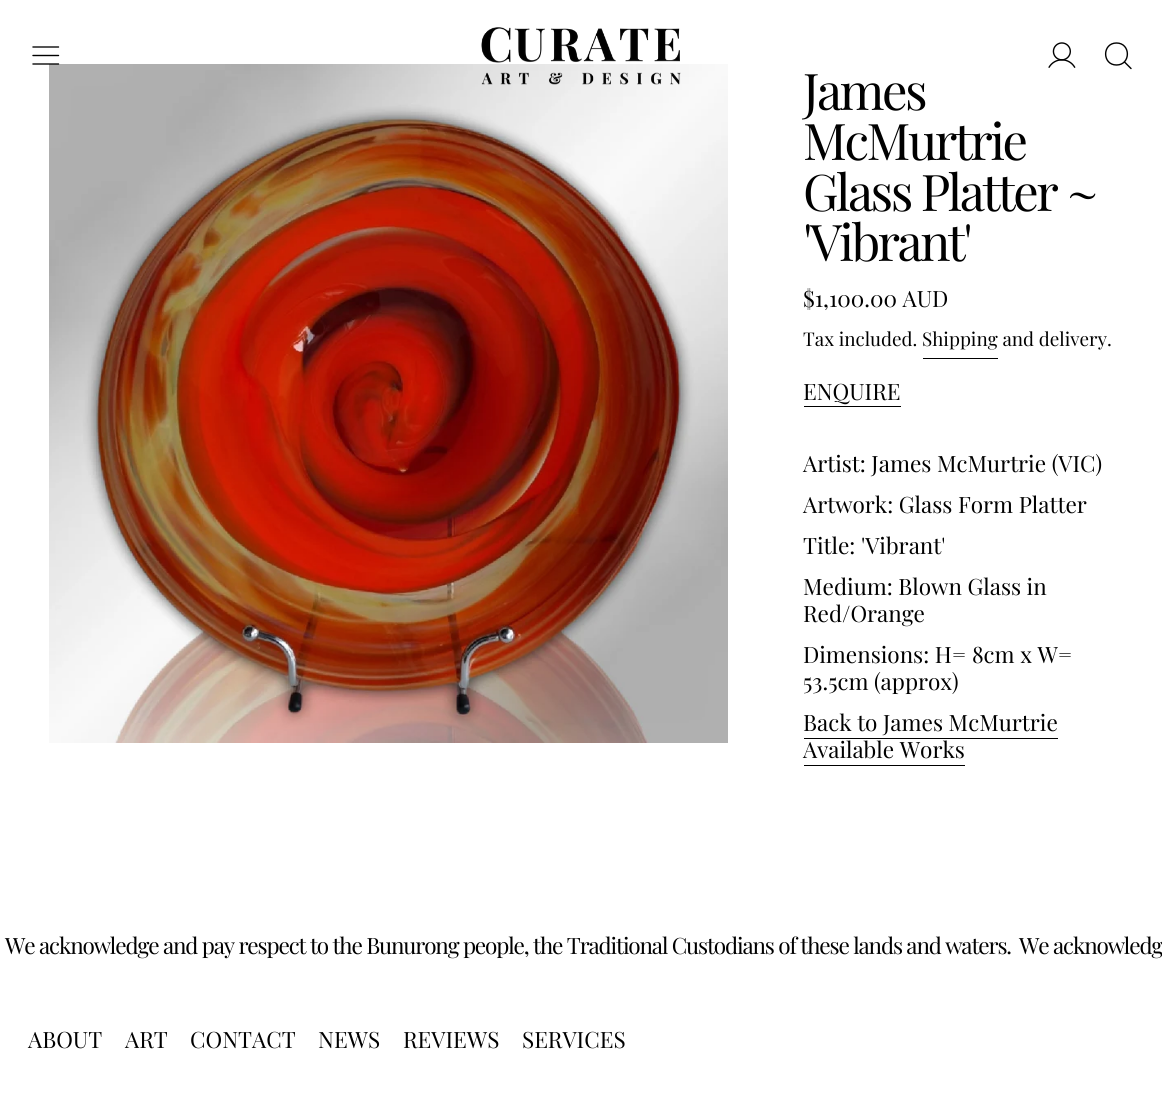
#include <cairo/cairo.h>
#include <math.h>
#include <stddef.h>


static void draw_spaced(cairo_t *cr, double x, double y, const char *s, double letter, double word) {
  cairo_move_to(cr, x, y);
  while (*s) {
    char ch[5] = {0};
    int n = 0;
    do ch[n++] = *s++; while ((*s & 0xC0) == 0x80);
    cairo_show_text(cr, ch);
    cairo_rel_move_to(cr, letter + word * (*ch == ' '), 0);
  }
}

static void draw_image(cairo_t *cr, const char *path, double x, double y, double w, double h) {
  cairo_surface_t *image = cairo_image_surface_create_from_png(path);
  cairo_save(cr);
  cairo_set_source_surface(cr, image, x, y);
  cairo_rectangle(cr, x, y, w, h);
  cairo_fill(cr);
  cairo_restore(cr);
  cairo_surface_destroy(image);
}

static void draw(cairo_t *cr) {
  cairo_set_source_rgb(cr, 1, 1, 1);
  cairo_paint(cr);
  draw_image(cr, "images/3.png", 49, 64, 679, 679);
  cairo_new_path(cr);
  cairo_move_to(cr, 33, 55.5);
  cairo_line_to(cr, 58.5, 55.5);
  cairo_move_to(cr, 33, 47);
  cairo_line_to(cr, 58.5, 47);
  cairo_move_to(cr, 33, 64);
  cairo_line_to(cr, 58.5, 64);
  cairo_set_source_rgb(cr, 0, 0, 0);
  cairo_set_line_width(cr, 1.4);
  cairo_set_line_cap(cr, CAIRO_LINE_CAP_ROUND);
  cairo_set_line_join(cr, CAIRO_LINE_JOIN_ROUND);
  cairo_stroke(cr);
  draw_image(cr, "images/1.png", 481, 27, 200, 58);
  draw_image(cr, "images/2.png", 1048, 42, 28, 26);
  cairo_new_path(cr);
  cairo_move_to(cr, 1116.5, 65);
  cairo_curve_to(cr, 1131, 65, 1131, 43, 1116.5, 43);
  cairo_curve_to(cr, 1102, 43, 1102, 65, 1116.5, 65);
  cairo_close_path(cr);
  cairo_move_to(cr, 1124.5, 62);
  cairo_line_to(cr, 1131, 68.5);
  cairo_stroke(cr);
  cairo_rectangle(cr, 923, 358, 75, 1);
  cairo_fill(cr);
  cairo_rectangle(cr, 804, 406, 97, 1);
  cairo_fill(cr);
  cairo_rectangle(cr, 804, 738, 254, 1);
  cairo_fill(cr);
  cairo_rectangle(cr, 804, 765, 161, 1);
  cairo_fill(cr);
  cairo_select_font_face(cr, "Playfair Display", CAIRO_FONT_SLANT_NORMAL, CAIRO_FONT_WEIGHT_NORMAL);
  cairo_set_font_size(cr, 50.5);
  draw_spaced(cr, 803, 110, "James", -2.5, 0);
  draw_spaced(cr, 803, 160, "McMurtrie", -2.5, 0);
  draw_spaced(cr, 803, 211, "Glass Platter ~", -2.5, 0);
  draw_spaced(cr, 803, 261, "'Vibrant'", -2.5, 0);
  cairo_set_font_size(cr, 22.5);
  cairo_move_to(cr, 803, 307);
  cairo_show_text(cr, "$1,100.00 AUD");
  cairo_set_font_size(cr, 18.9);
  cairo_move_to(cr, 803, 346);
  cairo_show_text(cr, "Tax included. Shipping and delivery.");
  cairo_set_font_size(cr, 22.5);
  cairo_move_to(cr, 803, 400);
  cairo_show_text(cr, "ENQUIRE");
  cairo_move_to(cr, 803, 472);
  cairo_show_text(cr, "Artist: James McMurtrie (VIC)");
  cairo_move_to(cr, 803, 513);
  cairo_show_text(cr, "Artwork: Glass Form Platter");
  cairo_move_to(cr, 803, 554);
  cairo_show_text(cr, "Title: 'Vibrant'");
  cairo_move_to(cr, 803, 595);
  cairo_show_text(cr, "Medium: Blown Glass in");
  cairo_move_to(cr, 803, 622);
  cairo_show_text(cr, "Red/Orange");
  cairo_move_to(cr, 803, 663);
  cairo_show_text(cr, "Dimensions: H= 8cm x W=");
  cairo_move_to(cr, 803, 690);
  cairo_show_text(cr, "53.5cm (approx)");
  cairo_move_to(cr, 803, 731);
  cairo_show_text(cr, "Back to James McMurtrie");
  cairo_move_to(cr, 803, 758);
  cairo_show_text(cr, "Available Works");
  draw_spaced(cr, 5, 954, "We acknowledge and pay respect to the Bunurong people, the Traditional Custodians of these lands and waters.", -1.12, 0);
  draw_spaced(cr, 1019, 954, "We acknowledg", -1.12, 0);
  cairo_move_to(cr, 28, 1048);
  cairo_show_text(cr, "ABOUT");
  cairo_move_to(cr, 125, 1048);
  cairo_show_text(cr, "ART");
  cairo_move_to(cr, 190, 1048);
  cairo_show_text(cr, "CONTACT");
  cairo_move_to(cr, 318, 1048);
  cairo_show_text(cr, "NEWS");
  cairo_move_to(cr, 403, 1048);
  cairo_show_text(cr, "REVIEWS");
  cairo_move_to(cr, 522, 1048);
  cairo_show_text(cr, "SERVICES");
}

int main(void) {
  cairo_surface_t *surface = cairo_image_surface_create(CAIRO_FORMAT_RGB24, 1162, 1095);
  cairo_t *cr = cairo_create(surface);
  cairo_font_options_t *options = cairo_font_options_create();
  cairo_font_options_set_hint_metrics(options, CAIRO_HINT_METRICS_OFF);
  cairo_font_options_set_hint_style(options, CAIRO_HINT_STYLE_NONE);
  cairo_set_font_options(cr, options);
  cairo_set_miter_limit(cr, 4);
  draw(cr);
  cairo_surface_write_to_png(surface, "out.png");
  cairo_font_options_destroy(options);
  cairo_destroy(cr);
  cairo_surface_destroy(surface);
  return 0;
}
